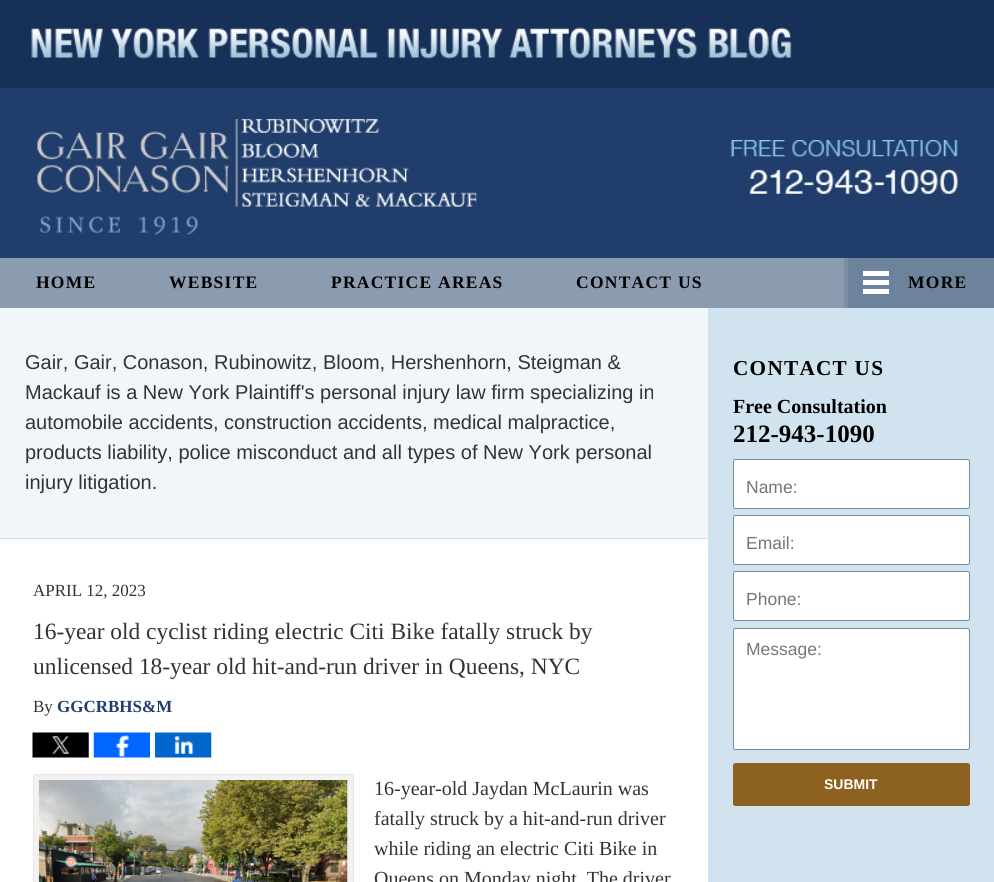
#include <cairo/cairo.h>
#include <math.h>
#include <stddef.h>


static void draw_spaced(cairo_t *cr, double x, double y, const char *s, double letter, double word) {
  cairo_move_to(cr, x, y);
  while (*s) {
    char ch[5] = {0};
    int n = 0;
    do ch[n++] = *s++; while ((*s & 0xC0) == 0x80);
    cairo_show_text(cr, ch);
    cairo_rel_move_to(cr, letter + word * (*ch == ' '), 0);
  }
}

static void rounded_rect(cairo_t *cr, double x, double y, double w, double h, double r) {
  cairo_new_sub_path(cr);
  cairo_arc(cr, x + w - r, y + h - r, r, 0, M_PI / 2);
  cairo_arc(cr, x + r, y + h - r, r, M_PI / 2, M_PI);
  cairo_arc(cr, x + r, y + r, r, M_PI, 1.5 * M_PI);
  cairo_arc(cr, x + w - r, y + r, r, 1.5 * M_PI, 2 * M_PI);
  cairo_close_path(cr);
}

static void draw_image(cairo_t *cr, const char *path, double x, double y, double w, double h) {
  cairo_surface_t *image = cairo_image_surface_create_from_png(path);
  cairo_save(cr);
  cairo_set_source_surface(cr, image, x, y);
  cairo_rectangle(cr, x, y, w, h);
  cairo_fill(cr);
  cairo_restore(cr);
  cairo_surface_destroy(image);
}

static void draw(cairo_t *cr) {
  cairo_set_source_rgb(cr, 32 / 255.0, 61 / 255.0, 107 / 255.0);
  cairo_paint(cr);
  cairo_set_source_rgb(cr, 23 / 255.0, 48 / 255.0, 88 / 255.0);
  cairo_rectangle(cr, 0, 0, 994, 88);
  cairo_fill(cr);
  draw_image(cr, "images/1.png", 31, 27, 761, 32);
  draw_image(cr, "images/2.png", 37, 119, 440, 116);
  draw_image(cr, "images/3.png", 731, 140, 227, 54);
  cairo_set_source_rgb(cr, 139 / 255.0, 156 / 255.0, 176 / 255.0);
  cairo_rectangle(cr, 0, 258, 844, 50);
  cairo_fill(cr);
  cairo_set_source_rgb(cr, 109 / 255.0, 130 / 255.0, 155 / 255.0);
  cairo_rectangle(cr, 848, 258, 146, 50);
  cairo_fill(cr);
  cairo_set_source_rgb(cr, 124 / 255.0, 143 / 255.0, 165 / 255.0);
  cairo_rectangle(cr, 844, 258, 4, 50);
  cairo_fill(cr);
  cairo_set_source_rgb(cr, 1, 1, 1);
  cairo_rectangle(cr, 863, 271, 26, 5);
  cairo_fill(cr);
  cairo_rectangle(cr, 863, 280, 26, 5);
  cairo_fill(cr);
  cairo_rectangle(cr, 863, 289, 26, 5);
  cairo_fill(cr);
  cairo_rectangle(cr, 0, 539, 708, 343);
  cairo_fill(cr);
  cairo_set_source_rgb(cr, 241 / 255.0, 246 / 255.0, 250 / 255.0);
  cairo_rectangle(cr, 0, 308, 708, 230);
  cairo_fill(cr);
  cairo_set_source_rgb(cr, 203 / 255.0, 222 / 255.0, 237 / 255.0);
  cairo_rectangle(cr, 0, 538, 708, 1);
  cairo_fill(cr);
  draw_image(cr, "images/4.png", 32, 732, 57, 26);
  draw_image(cr, "images/5.png", 93, 732, 57, 26);
  draw_image(cr, "images/6.png", 155, 732, 57, 26);
  cairo_set_source_rgb(cr, 242 / 255.0, 242 / 255.0, 242 / 255.0);
  rounded_rect(cr, 33.5, 774.5, 320, 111, 2);
  cairo_fill_preserve(cr);
  cairo_set_source_rgb(cr, 230 / 255.0, 230 / 255.0, 230 / 255.0);
  cairo_set_line_width(cr, 1);
  cairo_stroke(cr);
  draw_image(cr, "images/7.png", 38, 780, 310, 102);
  cairo_set_source_rgb(cr, 210 / 255.0, 227 / 255.0, 240 / 255.0);
  cairo_rectangle(cr, 708, 308, 286, 574);
  cairo_fill(cr);
  cairo_set_source_rgb(cr, 1, 1, 1);
  rounded_rect(cr, 733.5, 459.5, 236, 49, 2);
  cairo_fill_preserve(cr);
  cairo_set_source_rgb(cr, 120 / 255.0, 139 / 255.0, 160 / 255.0);
  cairo_stroke(cr);
  cairo_set_source_rgb(cr, 1, 1, 1);
  rounded_rect(cr, 733.5, 515.5, 236, 49, 2);
  cairo_fill_preserve(cr);
  cairo_set_source_rgb(cr, 120 / 255.0, 139 / 255.0, 160 / 255.0);
  cairo_stroke(cr);
  cairo_set_source_rgb(cr, 1, 1, 1);
  rounded_rect(cr, 733.5, 571.5, 236, 49, 2);
  cairo_fill_preserve(cr);
  cairo_set_source_rgb(cr, 120 / 255.0, 139 / 255.0, 160 / 255.0);
  cairo_stroke(cr);
  cairo_set_source_rgb(cr, 1, 1, 1);
  rounded_rect(cr, 733.5, 628.5, 236, 121, 2);
  cairo_fill_preserve(cr);
  cairo_set_source_rgb(cr, 120 / 255.0, 139 / 255.0, 160 / 255.0);
  cairo_stroke(cr);
  cairo_set_source_rgb(cr, 141 / 255.0, 97 / 255.0, 32 / 255.0);
  cairo_new_path(cr);
  cairo_move_to(cr, 735, 764);
  cairo_line_to(cr, 968, 764);
  cairo_curve_to(cr, 968, 764, 969, 764, 969, 765);
  cairo_line_to(cr, 969, 804);
  cairo_line_to(cr, 734, 804);
  cairo_line_to(cr, 734, 765);
  cairo_close_path(cr);
  cairo_fill(cr);
  rounded_rect(cr, 733.5, 763.5, 236, 42, 2);
  cairo_stroke(cr);
  cairo_rectangle(cr, 734, 804, 235, 1);
  cairo_fill(cr);
  cairo_select_font_face(cr, "Liberation Serif", CAIRO_FONT_SLANT_NORMAL, CAIRO_FONT_WEIGHT_BOLD);
  cairo_set_font_size(cr, 17.5);
  cairo_set_source_rgb(cr, 0, 0, 0);
  draw_spaced(cr, 36, 288, "HOME", 1.25, 0);
  draw_spaced(cr, 169, 288, "WEBSITE", 1.25, 0);
  draw_spaced(cr, 331, 288, "PRACTICE AREAS", 1.25, 0);
  draw_spaced(cr, 576, 288, "CONTACT US", 1.25, 0);
  draw_spaced(cr, 908, 288, "MORE", 1.25, 0);
  cairo_select_font_face(cr, "Liberation Sans", CAIRO_FONT_SLANT_NORMAL, CAIRO_FONT_WEIGHT_NORMAL);
  cairo_set_font_size(cr, 20);
  cairo_set_source_rgb(cr, 51 / 255.0, 51 / 255.0, 51 / 255.0);
  cairo_move_to(cr, 25, 369);
  cairo_show_text(cr, "Gair, Gair, Conason, Rubinowitz, Bloom, Hershenhorn, Steigman &");
  cairo_move_to(cr, 25, 399);
  cairo_show_text(cr, "Mackauf is a New York Plaintiff's personal injury law firm specializing in");
  cairo_move_to(cr, 25, 429);
  cairo_show_text(cr, "automobile accidents, construction accidents, medical malpractice,");
  cairo_move_to(cr, 25, 459);
  cairo_show_text(cr, "products liability, police misconduct and all types of New York personal");
  cairo_move_to(cr, 25, 489);
  cairo_show_text(cr, "injury litigation.");
  cairo_select_font_face(cr, "Liberation Serif", CAIRO_FONT_SLANT_NORMAL, CAIRO_FONT_WEIGHT_NORMAL);
  cairo_set_font_size(cr, 17);
  cairo_move_to(cr, 33, 596);
  cairo_show_text(cr, "APRIL 12, 2023");
  cairo_set_font_size(cr, 23.4);
  cairo_move_to(cr, 33, 639);
  cairo_show_text(cr, "16-year old cyclist riding electric Citi Bike fatally struck by");
  cairo_move_to(cr, 33, 674);
  cairo_show_text(cr, "unlicensed 18-year old hit-and-run driver in Queens, NYC");
  cairo_set_font_size(cr, 17);
  cairo_move_to(cr, 33, 712);
  cairo_show_text(cr, "By");
  cairo_select_font_face(cr, "Liberation Serif", CAIRO_FONT_SLANT_NORMAL, CAIRO_FONT_WEIGHT_BOLD);
  cairo_set_source_rgb(cr, 32 / 255.0, 61 / 255.0, 107 / 255.0);
  cairo_move_to(cr, 57, 712);
  cairo_show_text(cr, "GGCRBHS&M");
  cairo_select_font_face(cr, "Liberation Serif", CAIRO_FONT_SLANT_NORMAL, CAIRO_FONT_WEIGHT_NORMAL);
  cairo_set_font_size(cr, 20);
  cairo_set_source_rgb(cr, 51 / 255.0, 51 / 255.0, 51 / 255.0);
  cairo_move_to(cr, 374, 795);
  cairo_show_text(cr, "16-year-old Jaydan McLaurin was");
  cairo_move_to(cr, 374, 825);
  cairo_show_text(cr, "fatally struck by a hit-and-run driver");
  cairo_move_to(cr, 374, 855);
  cairo_show_text(cr, "while riding an electric Citi Bike in");
  cairo_move_to(cr, 374, 885);
  cairo_show_text(cr, "Queens on Monday night. The driver");
  cairo_select_font_face(cr, "Liberation Serif", CAIRO_FONT_SLANT_NORMAL, CAIRO_FONT_WEIGHT_BOLD);
  cairo_set_font_size(cr, 21.25);
  cairo_set_source_rgb(cr, 0, 0, 0);
  draw_spaced(cr, 733, 375, "CONTACT US", 1.25, 0);
  cairo_set_font_size(cr, 20);
  cairo_move_to(cr, 733, 413);
  cairo_show_text(cr, "Free Consultation");
  cairo_set_font_size(cr, 25);
  cairo_move_to(cr, 733, 442);
  cairo_show_text(cr, "212-943-1090");
  cairo_select_font_face(cr, "Liberation Sans", CAIRO_FONT_SLANT_NORMAL, CAIRO_FONT_WEIGHT_NORMAL);
  cairo_set_font_size(cr, 17.5);
  cairo_set_source_rgb(cr, 117 / 255.0, 117 / 255.0, 117 / 255.0);
  cairo_move_to(cr, 746, 493);
  cairo_show_text(cr, "Name:");
  cairo_move_to(cr, 746, 549);
  cairo_show_text(cr, "Email:");
  cairo_move_to(cr, 746, 605);
  cairo_show_text(cr, "Phone:");
  cairo_move_to(cr, 746, 655);
  cairo_show_text(cr, "Message:");
  cairo_select_font_face(cr, "Liberation Sans", CAIRO_FONT_SLANT_NORMAL, CAIRO_FONT_WEIGHT_BOLD);
  cairo_set_font_size(cr, 14);
  cairo_set_source_rgb(cr, 1, 1, 1);
  cairo_move_to(cr, 824, 789);
  cairo_show_text(cr, "SUBMIT");
}

int main(void) {
  cairo_surface_t *surface = cairo_image_surface_create(CAIRO_FORMAT_RGB24, 994, 882);
  cairo_t *cr = cairo_create(surface);
  cairo_font_options_t *options = cairo_font_options_create();
  cairo_font_options_set_hint_metrics(options, CAIRO_HINT_METRICS_OFF);
  cairo_font_options_set_hint_style(options, CAIRO_HINT_STYLE_NONE);
  cairo_set_font_options(cr, options);
  cairo_set_miter_limit(cr, 4);
  draw(cr);
  cairo_surface_write_to_png(surface, "out.png");
  cairo_font_options_destroy(options);
  cairo_destroy(cr);
  cairo_surface_destroy(surface);
  return 0;
}
